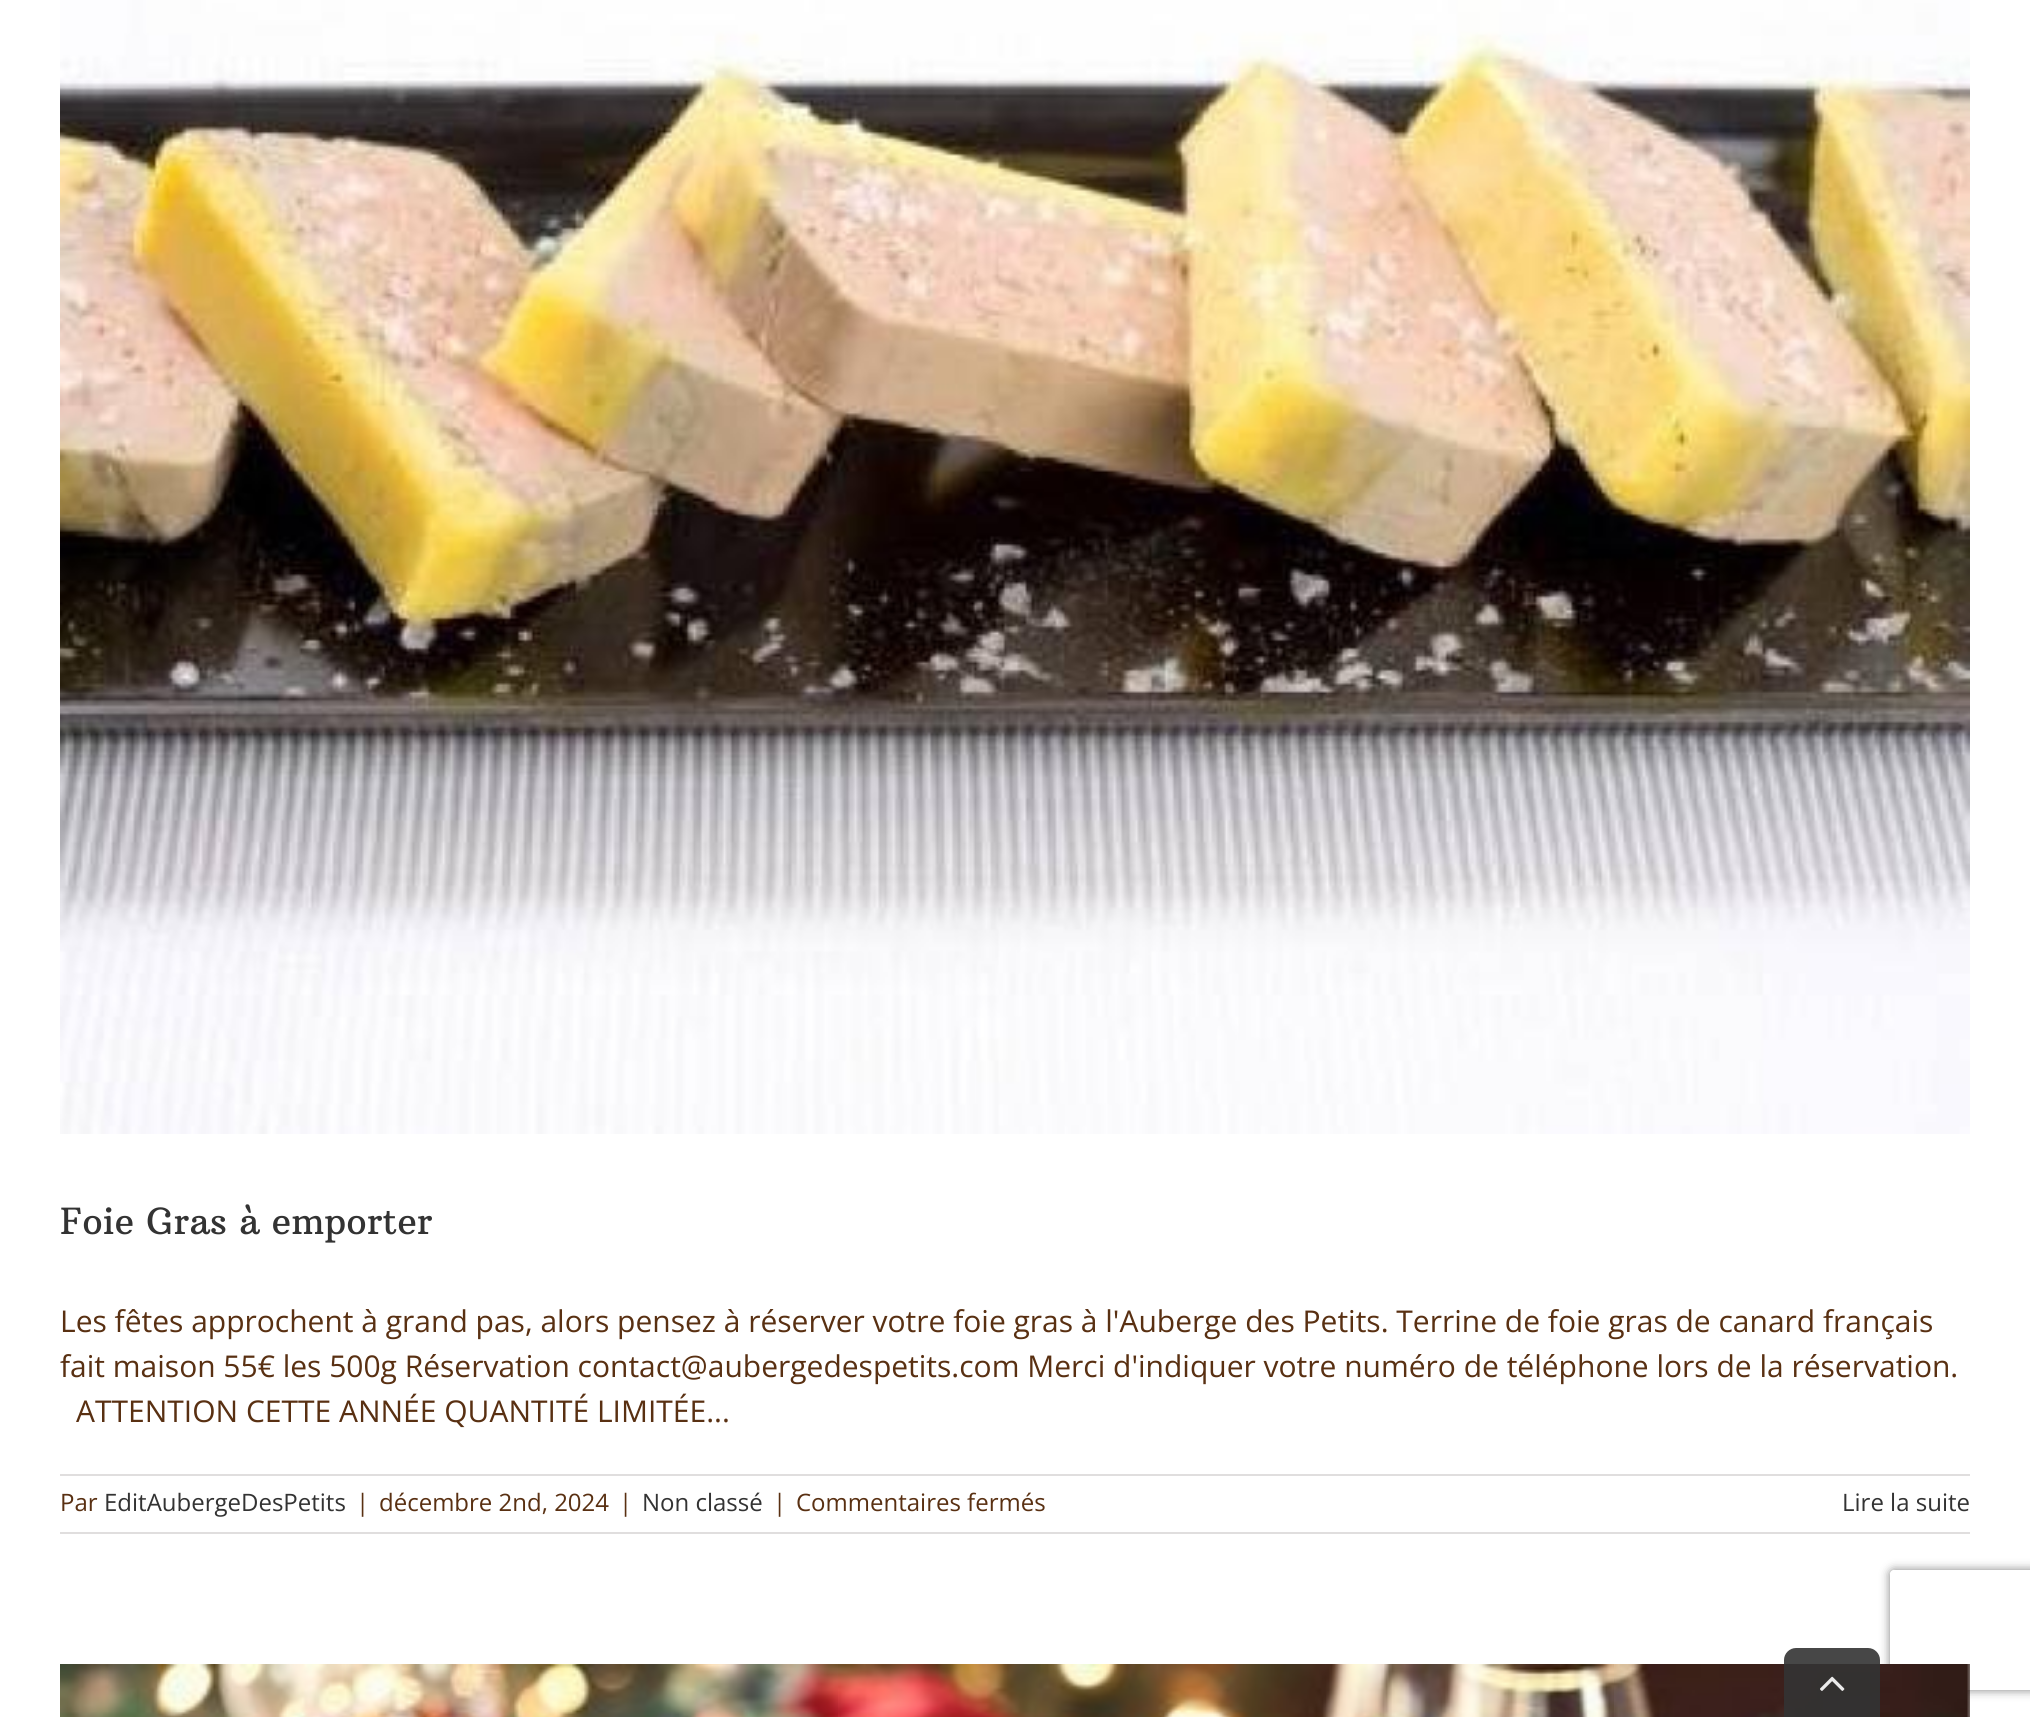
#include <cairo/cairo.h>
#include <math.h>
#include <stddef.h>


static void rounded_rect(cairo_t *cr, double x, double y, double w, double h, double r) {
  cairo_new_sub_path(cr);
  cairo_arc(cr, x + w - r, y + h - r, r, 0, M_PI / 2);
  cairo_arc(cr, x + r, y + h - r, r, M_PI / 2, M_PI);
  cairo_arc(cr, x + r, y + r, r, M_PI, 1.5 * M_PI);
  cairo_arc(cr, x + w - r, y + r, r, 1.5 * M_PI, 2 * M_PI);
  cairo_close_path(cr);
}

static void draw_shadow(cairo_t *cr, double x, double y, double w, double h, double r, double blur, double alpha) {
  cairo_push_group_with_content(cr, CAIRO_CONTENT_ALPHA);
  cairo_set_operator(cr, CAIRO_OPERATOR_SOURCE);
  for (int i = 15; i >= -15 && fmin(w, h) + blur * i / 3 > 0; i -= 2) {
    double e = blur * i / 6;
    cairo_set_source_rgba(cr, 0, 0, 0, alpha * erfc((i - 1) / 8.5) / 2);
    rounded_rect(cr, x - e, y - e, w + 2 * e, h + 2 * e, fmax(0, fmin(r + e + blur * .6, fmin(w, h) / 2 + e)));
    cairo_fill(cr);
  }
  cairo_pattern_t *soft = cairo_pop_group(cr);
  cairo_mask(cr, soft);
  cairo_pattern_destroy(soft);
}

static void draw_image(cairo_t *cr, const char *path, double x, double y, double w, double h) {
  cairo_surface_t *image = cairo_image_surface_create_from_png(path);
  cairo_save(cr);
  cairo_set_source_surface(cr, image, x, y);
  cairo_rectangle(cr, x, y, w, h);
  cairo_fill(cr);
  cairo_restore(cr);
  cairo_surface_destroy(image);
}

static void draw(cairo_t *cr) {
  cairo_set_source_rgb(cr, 1, 1, 1);
  cairo_paint(cr);
  draw_image(cr, "images/1.png", 60, 0, 1910, 1134);
  cairo_set_source_rgb(cr, 224 / 255.0, 222 / 255.0, 222 / 255.0);
  cairo_rectangle(cr, 60, 1474, 1910, 2);
  cairo_fill(cr);
  cairo_rectangle(cr, 60, 1532, 1910, 2);
  cairo_fill(cr);
  cairo_save(cr);
  cairo_set_fill_rule(cr, CAIRO_FILL_RULE_EVEN_ODD);
  cairo_new_path(cr);
  cairo_move_to(cr, 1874, 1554);
  cairo_line_to(cr, 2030, 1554);
  cairo_line_to(cr, 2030, 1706);
  cairo_line_to(cr, 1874, 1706);
  cairo_close_path(cr);
  cairo_move_to(cr, 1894, 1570);
  cairo_line_to(cr, 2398, 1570);
  cairo_curve_to(cr, 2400, 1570, 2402, 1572, 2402, 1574);
  cairo_line_to(cr, 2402, 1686);
  cairo_curve_to(cr, 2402, 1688, 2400, 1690, 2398, 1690);
  cairo_line_to(cr, 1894, 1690);
  cairo_curve_to(cr, 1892, 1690, 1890, 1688, 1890, 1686);
  cairo_line_to(cr, 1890, 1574);
  cairo_curve_to(cr, 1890, 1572, 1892, 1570, 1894, 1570);
  cairo_close_path(cr);
  cairo_clip(cr);
  cairo_set_source_rgb(cr, 128 / 255.0, 128 / 255.0, 128 / 255.0);
  draw_shadow(cr, 1890, 1570, 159, 120, 4, 5, 1);
  cairo_restore(cr);
  draw_image(cr, "images/2.png", 60, 1664, 1910, 53);
  cairo_set_source_rgba(cr, 51 / 255.0, 51 / 255.0, 51 / 255.0, 0.9);
  cairo_new_path(cr);
  cairo_move_to(cr, 1796, 1648);
  cairo_line_to(cr, 1868, 1648);
  cairo_curve_to(cr, 1874.5, 1648, 1880, 1653.5, 1880, 1660);
  cairo_line_to(cr, 1880, 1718);
  cairo_line_to(cr, 1784, 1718);
  cairo_line_to(cr, 1784, 1660);
  cairo_curve_to(cr, 1784, 1653.5, 1789.5, 1648, 1796, 1648);
  cairo_close_path(cr);
  cairo_fill(cr);
  draw_image(cr, "images/3.png", 1820, 1676, 25, 15);
  cairo_select_font_face(cr, "Arbutus Slab", CAIRO_FONT_SLANT_NORMAL, CAIRO_FONT_WEIGHT_NORMAL);
  cairo_set_font_size(cr, 36);
  cairo_set_source_rgb(cr, 51 / 255.0, 51 / 255.0, 51 / 255.0);
  cairo_move_to(cr, 60, 1234);
  cairo_show_text(cr, "Foie Gras à emporter");
  cairo_select_font_face(cr, "Open Sans", CAIRO_FONT_SLANT_NORMAL, CAIRO_FONT_WEIGHT_NORMAL);
  cairo_set_font_size(cr, 30);
  cairo_set_source_rgb(cr, 89 / 255.0, 48 / 255.0, 18 / 255.0);
  cairo_move_to(cr, 60, 1332);
  cairo_show_text(cr, "Les fêtes approchent à grand pas, alors pensez à réserver votre foie gras à l'Auberge des Petits. Terrine de foie gras de canard français");
  cairo_move_to(cr, 60, 1377);
  cairo_show_text(cr, "fait maison 55€ les 500g Réservation contact@aubergedespetits.com Merci d'indiquer votre numéro de téléphone lors de la réservation.");
  cairo_move_to(cr, 76, 1422);
  cairo_show_text(cr, "ATTENTION CETTE ANNÉE QUANTITÉ LIMITÉE...");
  cairo_set_font_size(cr, 24);
  cairo_move_to(cr, 60, 1511);
  cairo_show_text(cr, "Par");
  cairo_set_source_rgb(cr, 51 / 255.0, 51 / 255.0, 51 / 255.0);
  cairo_move_to(cr, 104, 1511);
  cairo_show_text(cr, "EditAubergeDesPetits");
  cairo_set_source_rgb(cr, 89 / 255.0, 48 / 255.0, 18 / 255.0);
  cairo_move_to(cr, 356, 1511);
  cairo_show_text(cr, "|");
  cairo_move_to(cr, 379, 1511);
  cairo_show_text(cr, "décembre 2nd, 2024");
  cairo_move_to(cr, 619, 1511);
  cairo_show_text(cr, "|");
  cairo_set_source_rgb(cr, 51 / 255.0, 51 / 255.0, 51 / 255.0);
  cairo_move_to(cr, 642, 1511);
  cairo_show_text(cr, "Non classé");
  cairo_set_source_rgb(cr, 89 / 255.0, 48 / 255.0, 18 / 255.0);
  cairo_move_to(cr, 773, 1511);
  cairo_show_text(cr, "|");
  cairo_move_to(cr, 796, 1511);
  cairo_show_text(cr, "Commentaires fermés");
  cairo_set_source_rgb(cr, 51 / 255.0, 51 / 255.0, 51 / 255.0);
  cairo_move_to(cr, 1842, 1511);
  cairo_show_text(cr, "Lire la suite");
}

int main(void) {
  cairo_surface_t *surface = cairo_image_surface_create(CAIRO_FORMAT_RGB24, 2030, 1717);
  cairo_t *cr = cairo_create(surface);
  cairo_font_options_t *options = cairo_font_options_create();
  cairo_font_options_set_hint_metrics(options, CAIRO_HINT_METRICS_OFF);
  cairo_font_options_set_hint_style(options, CAIRO_HINT_STYLE_NONE);
  cairo_set_font_options(cr, options);
  cairo_set_miter_limit(cr, 4);
  draw(cr);
  cairo_surface_write_to_png(surface, "out.png");
  cairo_font_options_destroy(options);
  cairo_destroy(cr);
  cairo_surface_destroy(surface);
  return 0;
}
